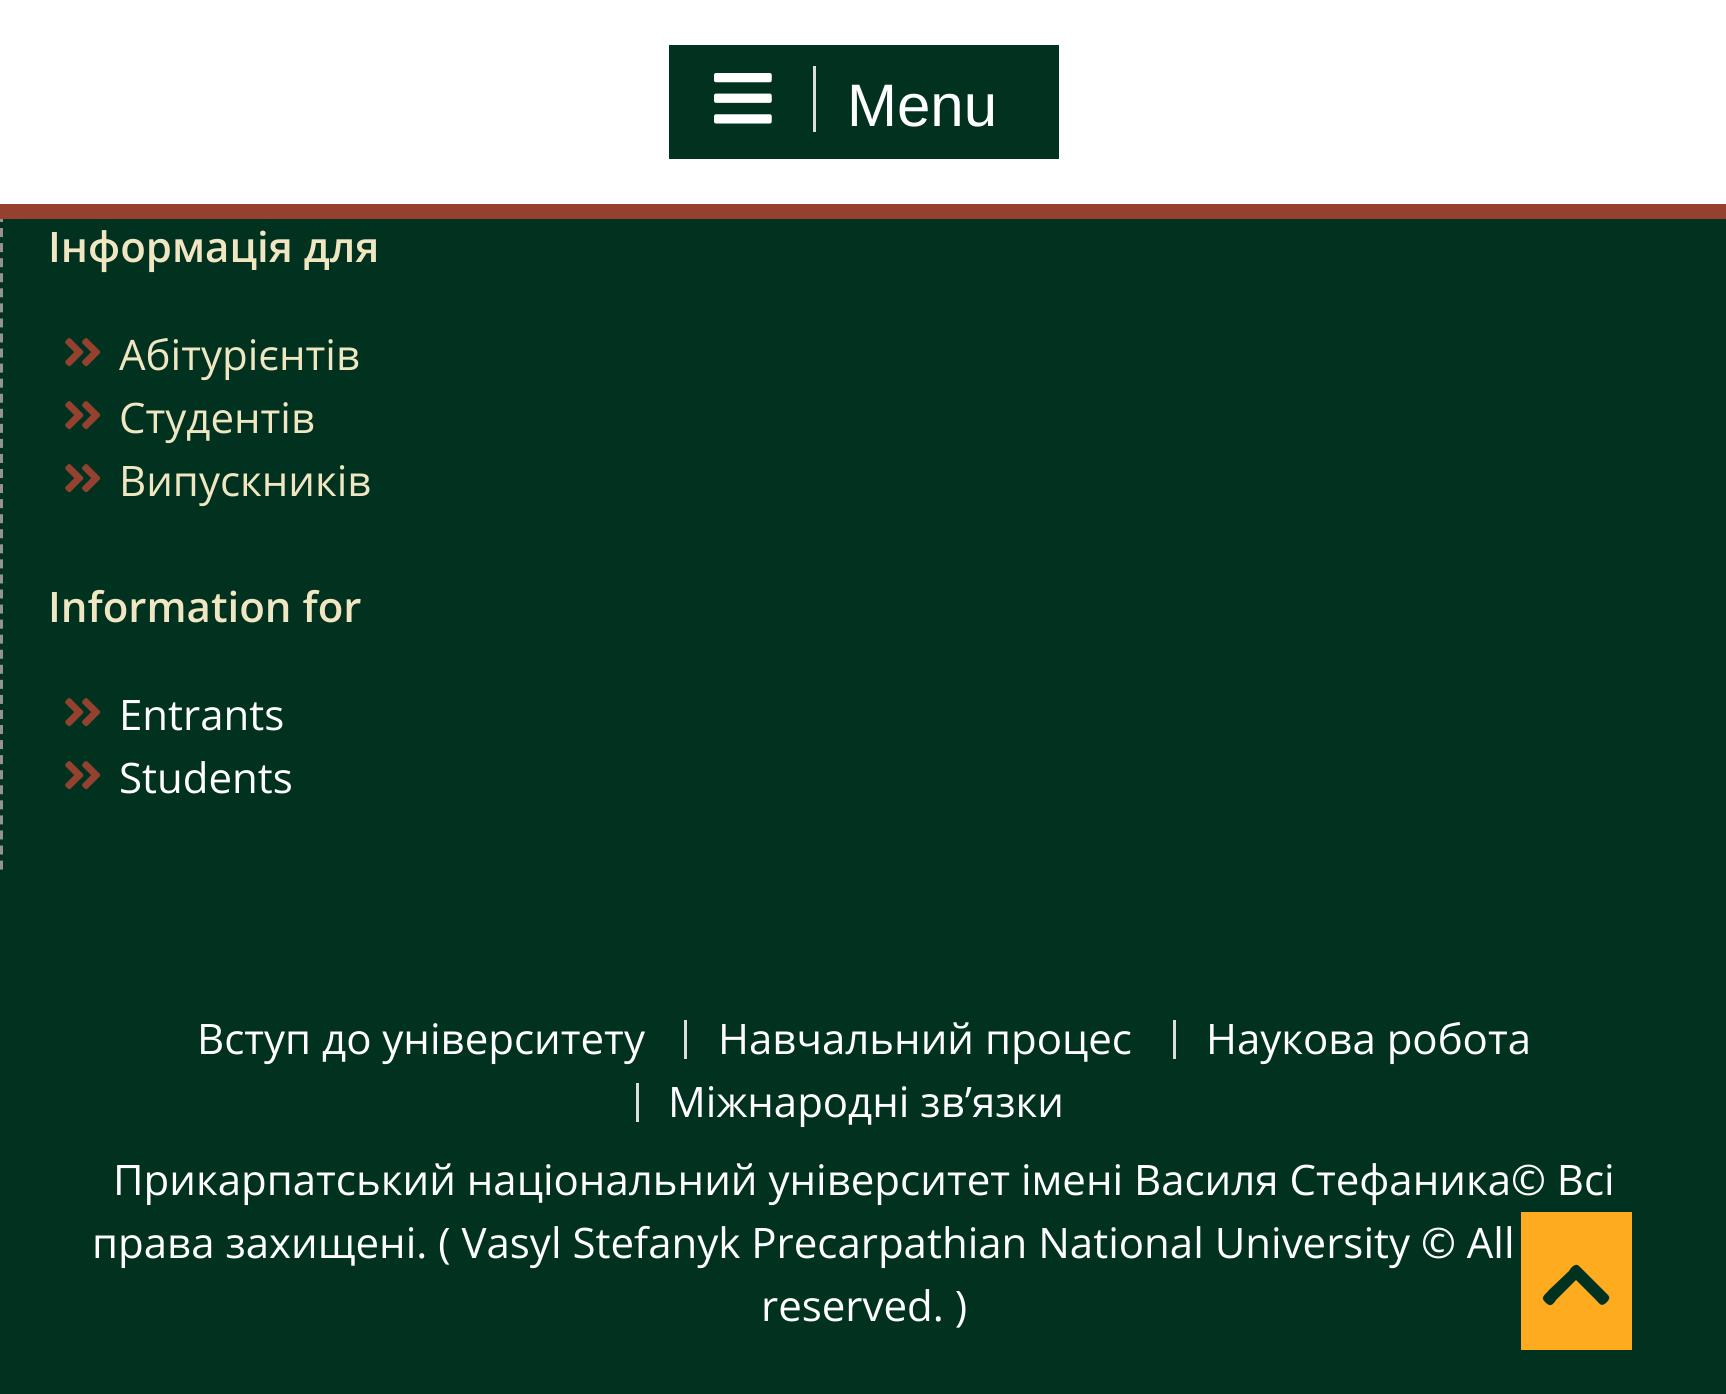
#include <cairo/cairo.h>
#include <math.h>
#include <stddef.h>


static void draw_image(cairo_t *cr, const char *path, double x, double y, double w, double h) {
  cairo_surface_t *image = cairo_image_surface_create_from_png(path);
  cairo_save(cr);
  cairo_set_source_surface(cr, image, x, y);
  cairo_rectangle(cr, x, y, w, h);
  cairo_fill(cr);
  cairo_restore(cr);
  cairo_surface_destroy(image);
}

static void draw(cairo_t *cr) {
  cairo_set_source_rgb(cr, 1 / 255.0, 50 / 255.0, 32 / 255.0);
  cairo_paint(cr);
  cairo_set_source_rgb(cr, 1, 1, 1);
  cairo_rectangle(cr, 0, 0, 1726, 204);
  cairo_fill(cr);
  cairo_new_path(cr);
  cairo_move_to(cr, 1.5, 213);
  cairo_line_to(cr, 1.5, 870);
  cairo_set_source_rgb(cr, 147 / 255.0, 147 / 255.0, 147 / 255.0);
  cairo_set_line_width(cr, 3);
  cairo_set_dash(cr, (double[]){9, 6.06}, 2, 0);
  cairo_stroke(cr);
  cairo_set_source_rgb(cr, 148 / 255.0, 65 / 255.0, 47 / 255.0);
  cairo_rectangle(cr, 0, 204, 1726, 15);
  cairo_fill(cr);
  cairo_set_source_rgb(cr, 1 / 255.0, 50 / 255.0, 32 / 255.0);
  cairo_rectangle(cr, 669, 45, 390, 114);
  cairo_fill(cr);
  cairo_set_source_rgb(cr, 221 / 255.0, 221 / 255.0, 221 / 255.0);
  cairo_rectangle(cr, 813, 66, 3, 66);
  cairo_fill(cr);
  draw_image(cr, "images/1.png", 714, 73, 58, 51);
  draw_image(cr, "images/2.png", 65, 338, 36, 29);
  draw_image(cr, "images/2.png", 65, 401, 36, 29);
  draw_image(cr, "images/2.png", 65, 464, 36, 29);
  draw_image(cr, "images/2.png", 65, 698, 36, 29);
  draw_image(cr, "images/2.png", 65, 761, 36, 29);
  cairo_rectangle(cr, 684, 1020, 3, 39);
  cairo_fill(cr);
  cairo_rectangle(cr, 1173, 1020, 3, 39);
  cairo_fill(cr);
  cairo_rectangle(cr, 636, 1083, 3, 39);
  cairo_fill(cr);
  cairo_set_source_rgb(cr, 1, 171 / 255.0, 31 / 255.0);
  cairo_rectangle(cr, 1521, 1212, 111, 138);
  cairo_fill(cr);
  cairo_set_source_rgb(cr, 1 / 255.0, 50 / 255.0, 32 / 255.0);
  cairo_new_path(cr);
  cairo_move_to(cr, 1579, 1266);
  cairo_line_to(cr, 1608, 1295);
  cairo_curve_to(cr, 1611, 1298, 1608, 1301, 1606, 1303);
  cairo_curve_to(cr, 1601, 1307, 1600, 1304, 1596, 1300);
  cairo_line_to(cr, 1576, 1280);
  cairo_line_to(cr, 1556, 1300);
  cairo_curve_to(cr, 1555, 1302, 1552, 1306, 1549, 1305);
  cairo_curve_to(cr, 1547, 1304, 1546, 1303, 1545, 1302);
  cairo_curve_to(cr, 1540, 1297, 1545, 1295, 1549, 1290);
  cairo_line_to(cr, 1569, 1271);
  cairo_curve_to(cr, 1570, 1269, 1575, 1262, 1579, 1266);
  cairo_close_path(cr);
  cairo_fill(cr);
  cairo_select_font_face(cr, "Liberation Sans", CAIRO_FONT_SLANT_NORMAL, CAIRO_FONT_WEIGHT_NORMAL);
  cairo_set_font_size(cr, 60);
  cairo_set_source_rgb(cr, 1, 1, 1);
  cairo_move_to(cr, 847, 126);
  cairo_show_text(cr, "Menu");
  cairo_select_font_face(cr, "Open Sans SemiBold", CAIRO_FONT_SLANT_NORMAL, CAIRO_FONT_WEIGHT_NORMAL);
  cairo_set_font_size(cr, 42);
  cairo_set_source_rgb(cr, 240 / 255.0, 230 / 255.0, 194 / 255.0);
  cairo_move_to(cr, 48, 262);
  cairo_show_text(cr, "Інформація для");
  cairo_select_font_face(cr, "Open Sans", CAIRO_FONT_SLANT_NORMAL, CAIRO_FONT_WEIGHT_NORMAL);
  cairo_move_to(cr, 119, 370);
  cairo_show_text(cr, "Абітурієнтів");
  cairo_move_to(cr, 119, 433);
  cairo_show_text(cr, "Студентів");
  cairo_move_to(cr, 119, 496);
  cairo_show_text(cr, "Випускників");
  cairo_select_font_face(cr, "Open Sans SemiBold", CAIRO_FONT_SLANT_NORMAL, CAIRO_FONT_WEIGHT_NORMAL);
  cairo_move_to(cr, 48, 622);
  cairo_show_text(cr, "Information for");
  cairo_select_font_face(cr, "Open Sans", CAIRO_FONT_SLANT_NORMAL, CAIRO_FONT_WEIGHT_NORMAL);
  cairo_set_source_rgb(cr, 1, 1, 1);
  cairo_move_to(cr, 119, 730);
  cairo_show_text(cr, "Entrants");
  cairo_move_to(cr, 119, 793);
  cairo_show_text(cr, "Students");
  cairo_move_to(cr, 197, 1054);
  cairo_show_text(cr, "Вступ до університету");
  cairo_move_to(cr, 718, 1054);
  cairo_show_text(cr, "Навчальний процес");
  cairo_move_to(cr, 1206, 1054);
  cairo_show_text(cr, "Наукова робота");
  cairo_move_to(cr, 668, 1117);
  cairo_show_text(cr, "Міжнародні зв’язки");
  cairo_move_to(cr, 113, 1195);
  cairo_show_text(cr, "Прикарпатський національний університет імені Василя Стефаника© Всі");
  cairo_move_to(cr, 92, 1258);
  cairo_show_text(cr, "права захищені. ( Vasyl Stefanyk Precarpathian National University © All");
  cairo_move_to(cr, 761, 1321);
  cairo_show_text(cr, "reserved. )");
}

int main(void) {
  cairo_surface_t *surface = cairo_image_surface_create(CAIRO_FORMAT_RGB24, 1726, 1394);
  cairo_t *cr = cairo_create(surface);
  cairo_font_options_t *options = cairo_font_options_create();
  cairo_font_options_set_hint_metrics(options, CAIRO_HINT_METRICS_OFF);
  cairo_font_options_set_hint_style(options, CAIRO_HINT_STYLE_NONE);
  cairo_set_font_options(cr, options);
  cairo_set_miter_limit(cr, 4);
  draw(cr);
  cairo_surface_write_to_png(surface, "out.png");
  cairo_font_options_destroy(options);
  cairo_destroy(cr);
  cairo_surface_destroy(surface);
  return 0;
}
